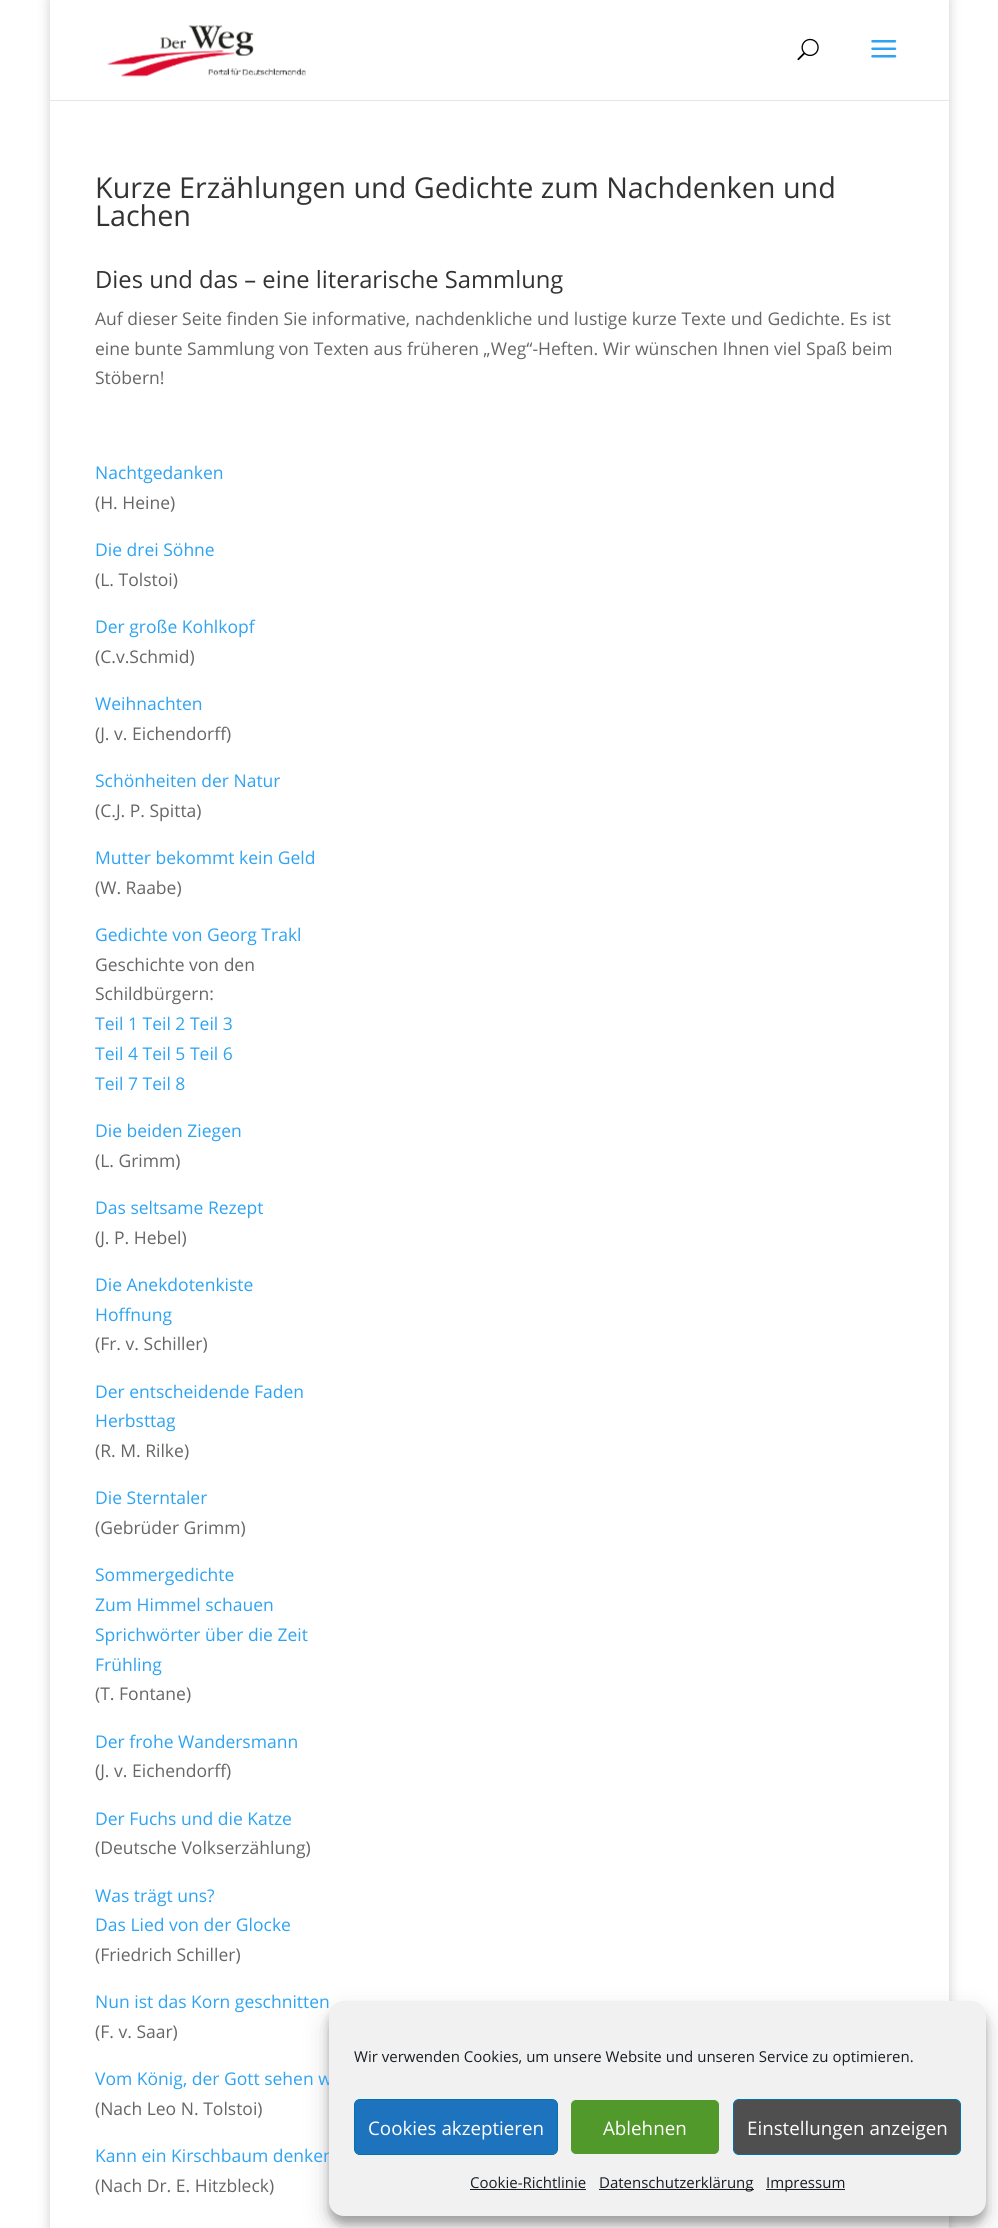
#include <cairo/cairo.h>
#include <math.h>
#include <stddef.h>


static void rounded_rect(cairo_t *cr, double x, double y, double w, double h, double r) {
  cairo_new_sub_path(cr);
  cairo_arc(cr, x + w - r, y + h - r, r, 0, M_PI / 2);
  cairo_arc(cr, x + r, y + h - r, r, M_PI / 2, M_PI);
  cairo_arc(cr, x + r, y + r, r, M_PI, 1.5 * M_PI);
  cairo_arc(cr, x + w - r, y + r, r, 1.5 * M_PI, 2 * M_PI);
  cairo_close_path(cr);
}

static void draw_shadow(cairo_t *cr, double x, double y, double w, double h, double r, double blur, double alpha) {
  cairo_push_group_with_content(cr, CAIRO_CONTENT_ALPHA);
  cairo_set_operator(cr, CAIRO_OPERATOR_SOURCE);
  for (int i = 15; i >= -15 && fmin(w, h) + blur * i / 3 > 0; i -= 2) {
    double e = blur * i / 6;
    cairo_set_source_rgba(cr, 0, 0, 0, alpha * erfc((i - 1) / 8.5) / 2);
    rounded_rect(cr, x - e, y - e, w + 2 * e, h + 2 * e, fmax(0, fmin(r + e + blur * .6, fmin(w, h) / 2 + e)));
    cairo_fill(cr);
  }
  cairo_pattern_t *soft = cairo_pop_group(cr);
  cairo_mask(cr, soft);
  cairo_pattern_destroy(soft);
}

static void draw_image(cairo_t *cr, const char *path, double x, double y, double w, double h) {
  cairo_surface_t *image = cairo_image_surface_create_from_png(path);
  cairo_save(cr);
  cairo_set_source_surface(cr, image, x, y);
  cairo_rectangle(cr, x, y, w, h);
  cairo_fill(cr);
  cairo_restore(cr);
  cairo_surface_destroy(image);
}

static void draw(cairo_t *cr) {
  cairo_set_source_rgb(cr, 1, 1, 1);
  cairo_paint(cr);
  cairo_set_source_rgb(cr, 0, 0, 0);
  draw_shadow(cr, 50, 0, 899, 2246, 0, 6, 0.2);
  cairo_set_source_rgb(cr, 230 / 255.0, 230 / 255.0, 230 / 255.0);
  cairo_new_path(cr);
  cairo_move_to(cr, 50, 100);
  cairo_line_to(cr, 50, 101);
  cairo_line_to(cr, 949, 101);
  cairo_line_to(cr, 949, 1);
  cairo_line_to(cr, 949, 100);
  cairo_close_path(cr);
  cairo_fill(cr);
  cairo_set_source_rgb(cr, 1, 1, 1);
  cairo_rectangle(cr, 50, 0, 899, 100);
  cairo_fill(cr);
  draw_image(cr, "images/1.png", 107, 25, 199, 52);
  draw_image(cr, "images/2.png", 797, 38, 22, 23);
  draw_image(cr, "images/3.png", 871, 40, 26, 18);
  cairo_rectangle(cr, 50, 101, 899, 2127);
  cairo_fill(cr);
  cairo_set_source_rgb(cr, 0, 0, 0);
  draw_shadow(cr, 329, 2009, 657, 215, 15, 4, 0.23);
  draw_shadow(cr, 329, 2014, 657, 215, 15, 12.5, 0.19);
  cairo_select_font_face(cr, "Open Sans", CAIRO_FONT_SLANT_NORMAL, CAIRO_FONT_WEIGHT_NORMAL);
  cairo_set_font_size(cr, 28.75);
  cairo_set_source_rgb(cr, 51 / 255.0, 51 / 255.0, 51 / 255.0);
  cairo_move_to(cr, 95, 198);
  cairo_show_text(cr, "Kurze Erzählungen und Gedichte zum Nachdenken und");
  cairo_move_to(cr, 95, 226);
  cairo_show_text(cr, "Lachen");
  cairo_set_font_size(cr, 23.75);
  cairo_move_to(cr, 95, 288);
  cairo_show_text(cr, "Dies und das – eine literarische Sammlung");
  cairo_set_font_size(cr, 17.5);
  cairo_set_source_rgb(cr, 102 / 255.0, 102 / 255.0, 102 / 255.0);
  cairo_move_to(cr, 95, 325);
  cairo_show_text(cr, "Auf dieser Seite finden Sie informative, nachdenkliche und lustige kurze Texte und Gedichte. Es ist");
  cairo_move_to(cr, 95, 355);
  cairo_show_text(cr, "eine bunte Sammlung von Texten aus früheren „Weg“-Heften. Wir wünschen Ihnen viel Spaß beim");
  cairo_move_to(cr, 95, 384);
  cairo_show_text(cr, "Stöbern!");
  cairo_set_source_rgb(cr, 46 / 255.0, 163 / 255.0, 242 / 255.0);
  cairo_move_to(cr, 95, 479);
  cairo_show_text(cr, "Nachtgedanken");
  cairo_set_source_rgb(cr, 102 / 255.0, 102 / 255.0, 102 / 255.0);
  cairo_move_to(cr, 95, 509);
  cairo_show_text(cr, "(H. Heine)");
  cairo_set_source_rgb(cr, 46 / 255.0, 163 / 255.0, 242 / 255.0);
  cairo_move_to(cr, 95, 556);
  cairo_show_text(cr, "Die drei Söhne");
  cairo_set_source_rgb(cr, 102 / 255.0, 102 / 255.0, 102 / 255.0);
  cairo_move_to(cr, 95, 586);
  cairo_show_text(cr, "(L. Tolstoi)");
  cairo_set_source_rgb(cr, 46 / 255.0, 163 / 255.0, 242 / 255.0);
  cairo_move_to(cr, 95, 633);
  cairo_show_text(cr, "Der große Kohlkopf");
  cairo_set_source_rgb(cr, 102 / 255.0, 102 / 255.0, 102 / 255.0);
  cairo_move_to(cr, 95, 663);
  cairo_show_text(cr, "(C.v.Schmid)");
  cairo_set_source_rgb(cr, 46 / 255.0, 163 / 255.0, 242 / 255.0);
  cairo_move_to(cr, 95, 710);
  cairo_show_text(cr, "Weihnachten");
  cairo_set_source_rgb(cr, 102 / 255.0, 102 / 255.0, 102 / 255.0);
  cairo_move_to(cr, 95, 740);
  cairo_show_text(cr, "(J. v. Eichendorff)");
  cairo_set_source_rgb(cr, 46 / 255.0, 163 / 255.0, 242 / 255.0);
  cairo_move_to(cr, 95, 787);
  cairo_show_text(cr, "Schönheiten der Natur");
  cairo_set_source_rgb(cr, 102 / 255.0, 102 / 255.0, 102 / 255.0);
  cairo_move_to(cr, 95, 817);
  cairo_show_text(cr, "(C.J. P. Spitta)");
  cairo_set_source_rgb(cr, 46 / 255.0, 163 / 255.0, 242 / 255.0);
  cairo_move_to(cr, 95, 864);
  cairo_show_text(cr, "Mutter bekommt kein Geld");
  cairo_set_source_rgb(cr, 102 / 255.0, 102 / 255.0, 102 / 255.0);
  cairo_move_to(cr, 95, 894);
  cairo_show_text(cr, "(W. Raabe)");
  cairo_set_source_rgb(cr, 46 / 255.0, 163 / 255.0, 242 / 255.0);
  cairo_move_to(cr, 95, 941);
  cairo_show_text(cr, "Gedichte von Georg Trakl");
  cairo_set_source_rgb(cr, 102 / 255.0, 102 / 255.0, 102 / 255.0);
  cairo_move_to(cr, 95, 971);
  cairo_show_text(cr, "Geschichte von den");
  cairo_move_to(cr, 95, 1000);
  cairo_show_text(cr, "Schildbürgern:");
  cairo_set_source_rgb(cr, 46 / 255.0, 163 / 255.0, 242 / 255.0);
  cairo_move_to(cr, 95, 1030);
  cairo_show_text(cr, "Teil 1 Teil 2 Teil 3");
  cairo_move_to(cr, 95, 1060);
  cairo_show_text(cr, "Teil 4 Teil 5 Teil 6");
  cairo_move_to(cr, 95, 1090);
  cairo_show_text(cr, "Teil 7 Teil 8");
  cairo_move_to(cr, 95, 1137);
  cairo_show_text(cr, "Die beiden Ziegen");
  cairo_set_source_rgb(cr, 102 / 255.0, 102 / 255.0, 102 / 255.0);
  cairo_move_to(cr, 95, 1167);
  cairo_show_text(cr, "(L. Grimm)");
  cairo_set_source_rgb(cr, 46 / 255.0, 163 / 255.0, 242 / 255.0);
  cairo_move_to(cr, 95, 1214);
  cairo_show_text(cr, "Das seltsame Rezept");
  cairo_set_source_rgb(cr, 102 / 255.0, 102 / 255.0, 102 / 255.0);
  cairo_move_to(cr, 95, 1244);
  cairo_show_text(cr, "(J. P. Hebel)");
  cairo_set_source_rgb(cr, 46 / 255.0, 163 / 255.0, 242 / 255.0);
  cairo_move_to(cr, 95, 1291);
  cairo_show_text(cr, "Die Anekdotenkiste");
  cairo_move_to(cr, 95, 1321);
  cairo_show_text(cr, "Hoffnung");
  cairo_set_source_rgb(cr, 102 / 255.0, 102 / 255.0, 102 / 255.0);
  cairo_move_to(cr, 95, 1350);
  cairo_show_text(cr, "(Fr. v. Schiller)");
  cairo_set_source_rgb(cr, 46 / 255.0, 163 / 255.0, 242 / 255.0);
  cairo_move_to(cr, 95, 1398);
  cairo_show_text(cr, "Der entscheidende Faden");
  cairo_move_to(cr, 95, 1427);
  cairo_show_text(cr, "Herbsttag");
  cairo_set_source_rgb(cr, 102 / 255.0, 102 / 255.0, 102 / 255.0);
  cairo_move_to(cr, 95, 1457);
  cairo_show_text(cr, "(R. M. Rilke)");
  cairo_set_source_rgb(cr, 46 / 255.0, 163 / 255.0, 242 / 255.0);
  cairo_move_to(cr, 95, 1504);
  cairo_show_text(cr, "Die Sterntaler");
  cairo_set_source_rgb(cr, 102 / 255.0, 102 / 255.0, 102 / 255.0);
  cairo_move_to(cr, 95, 1534);
  cairo_show_text(cr, "(Gebrüder Grimm)");
  cairo_set_source_rgb(cr, 46 / 255.0, 163 / 255.0, 242 / 255.0);
  cairo_move_to(cr, 95, 1581);
  cairo_show_text(cr, "Sommergedichte");
  cairo_move_to(cr, 95, 1611);
  cairo_show_text(cr, "Zum Himmel schauen");
  cairo_move_to(cr, 95, 1641);
  cairo_show_text(cr, "Sprichwörter über die Zeit");
  cairo_move_to(cr, 95, 1671);
  cairo_show_text(cr, "Frühling");
  cairo_set_source_rgb(cr, 102 / 255.0, 102 / 255.0, 102 / 255.0);
  cairo_move_to(cr, 95, 1700);
  cairo_show_text(cr, "(T. Fontane)");
  cairo_set_source_rgb(cr, 46 / 255.0, 163 / 255.0, 242 / 255.0);
  cairo_move_to(cr, 95, 1748);
  cairo_show_text(cr, "Der frohe Wandersmann");
  cairo_set_source_rgb(cr, 102 / 255.0, 102 / 255.0, 102 / 255.0);
  cairo_move_to(cr, 95, 1777);
  cairo_show_text(cr, "(J. v. Eichendorff)");
  cairo_set_source_rgb(cr, 46 / 255.0, 163 / 255.0, 242 / 255.0);
  cairo_move_to(cr, 95, 1825);
  cairo_show_text(cr, "Der Fuchs und die Katze");
  cairo_set_source_rgb(cr, 102 / 255.0, 102 / 255.0, 102 / 255.0);
  cairo_move_to(cr, 95, 1854);
  cairo_show_text(cr, "(Deutsche Volkserzählung)");
  cairo_set_source_rgb(cr, 46 / 255.0, 163 / 255.0, 242 / 255.0);
  cairo_move_to(cr, 95, 1902);
  cairo_show_text(cr, "Was trägt uns?");
  cairo_move_to(cr, 95, 1931);
  cairo_show_text(cr, "Das Lied von der Glocke");
  cairo_set_source_rgb(cr, 102 / 255.0, 102 / 255.0, 102 / 255.0);
  cairo_move_to(cr, 95, 1961);
  cairo_show_text(cr, "(Friedrich Schiller)");
  cairo_set_source_rgb(cr, 46 / 255.0, 163 / 255.0, 242 / 255.0);
  cairo_move_to(cr, 95, 2008);
  cairo_show_text(cr, "Nun ist das Korn geschnitten");
  cairo_set_source_rgb(cr, 102 / 255.0, 102 / 255.0, 102 / 255.0);
  cairo_move_to(cr, 95, 2038);
  cairo_show_text(cr, "(F. v. Saar)");
  cairo_set_source_rgb(cr, 46 / 255.0, 163 / 255.0, 242 / 255.0);
  cairo_move_to(cr, 95, 2085);
  cairo_show_text(cr, "Vom König, der Gott sehen w");
  cairo_set_source_rgb(cr, 102 / 255.0, 102 / 255.0, 102 / 255.0);
  cairo_move_to(cr, 95, 2115);
  cairo_show_text(cr, "(Nach Leo N. Tolstoi)");
  cairo_set_source_rgb(cr, 46 / 255.0, 163 / 255.0, 242 / 255.0);
  cairo_move_to(cr, 95, 2162);
  cairo_show_text(cr, "Kann ein Kirschbaum denken");
  cairo_set_source_rgb(cr, 102 / 255.0, 102 / 255.0, 102 / 255.0);
  cairo_move_to(cr, 95, 2192);
  cairo_show_text(cr, "(Nach Dr. E. Hitzbleck)");
  cairo_set_source_rgb(cr, 241 / 255.0, 241 / 255.0, 241 / 255.0);
  rounded_rect(cr, 329, 2001, 657, 215, 15);
  cairo_fill(cr);
  cairo_set_font_size(cr, 15);
  cairo_set_source_rgb(cr, 25 / 255.0, 30 / 255.0, 35 / 255.0);
  cairo_move_to(cr, 354, 2062);
  cairo_show_text(cr, "Wir verwenden Cookies, um unsere Website und unseren Service zu optimieren.");
  cairo_set_source_rgb(cr, 30 / 255.0, 115 / 255.0, 190 / 255.0);
  rounded_rect(cr, 354.5, 2099.5, 203, 55, 5.5);
  cairo_fill_preserve(cr);
  cairo_set_source_rgb(cr, 0, 115 / 255.0, 170 / 255.0);
  cairo_set_line_width(cr, 1);
  cairo_stroke(cr);
  cairo_set_font_size(cr, 18.75);
  cairo_set_source_rgb(cr, 1, 1, 1);
  cairo_move_to(cr, 368, 2135);
  cairo_show_text(cr, "Cookies akzeptieren");
  cairo_set_source_rgb(cr, 82 / 255.0, 153 / 255.0, 44 / 255.0);
  rounded_rect(cr, 570.5, 2099.5, 149, 55, 5.5);
  cairo_fill_preserve(cr);
  cairo_set_source_rgb(cr, 241 / 255.0, 241 / 255.0, 241 / 255.0);
  cairo_stroke(cr);
  cairo_set_source_rgb(cr, 1, 1, 1);
  cairo_move_to(cr, 603, 2135);
  cairo_show_text(cr, "Ablehnen");
  cairo_set_source_rgb(cr, 79 / 255.0, 79 / 255.0, 79 / 255.0);
  rounded_rect(cr, 733.5, 2099.5, 227, 55, 5.5);
  cairo_fill_preserve(cr);
  cairo_set_source_rgb(cr, 0, 115 / 255.0, 170 / 255.0);
  cairo_stroke(cr);
  cairo_set_source_rgb(cr, 1, 1, 1);
  cairo_move_to(cr, 747, 2135);
  cairo_show_text(cr, "Einstellungen anzeigen");
  cairo_set_font_size(cr, 15);
  cairo_set_source_rgb(cr, 25 / 255.0, 30 / 255.0, 35 / 255.0);
  cairo_move_to(cr, 470, 2188);
  cairo_show_text(cr, "Cookie-Richtlinie");
  cairo_rectangle(cr, 470, 2189, 116, 1);
  cairo_fill(cr);
  cairo_rectangle(cr, 599, 2189, 155, 1);
  cairo_fill(cr);
  cairo_move_to(cr, 599, 2188);
  cairo_show_text(cr, "Datenschutzerklärung");
  cairo_rectangle(cr, 766, 2189, 79, 1);
  cairo_fill(cr);
  cairo_move_to(cr, 766, 2188);
  cairo_show_text(cr, "Impressum");
}

int main(void) {
  cairo_surface_t *surface = cairo_image_surface_create(CAIRO_FORMAT_RGB24, 998, 2228);
  cairo_t *cr = cairo_create(surface);
  cairo_font_options_t *options = cairo_font_options_create();
  cairo_font_options_set_hint_metrics(options, CAIRO_HINT_METRICS_OFF);
  cairo_font_options_set_hint_style(options, CAIRO_HINT_STYLE_NONE);
  cairo_set_font_options(cr, options);
  cairo_set_miter_limit(cr, 4);
  draw(cr);
  cairo_surface_write_to_png(surface, "out.png");
  cairo_font_options_destroy(options);
  cairo_destroy(cr);
  cairo_surface_destroy(surface);
  return 0;
}
